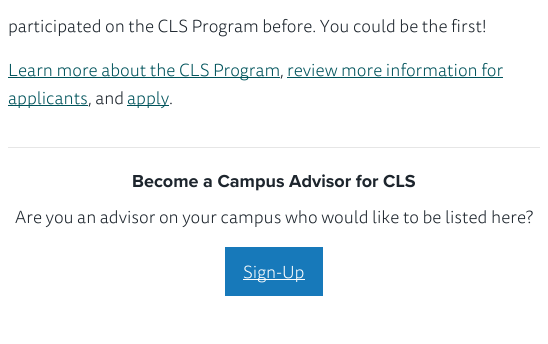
#include <cairo/cairo.h>
#include <math.h>
#include <stddef.h>


static void draw(cairo_t *cr) {
  cairo_set_source_rgb(cr, 1, 1, 1);
  cairo_paint(cr);
  cairo_set_source_rgb(cr, 0, 83 / 255.0, 91 / 255.0);
  cairo_rectangle(cr, 8, 77, 272, 1);
  cairo_fill(cr);
  cairo_rectangle(cr, 287, 77, 216, 1);
  cairo_fill(cr);
  cairo_rectangle(cr, 8, 105, 80, 1);
  cairo_fill(cr);
  cairo_rectangle(cr, 127, 105, 42, 1);
  cairo_fill(cr);
  cairo_set_source_rgb(cr, 230 / 255.0, 230 / 255.0, 230 / 255.0);
  cairo_rectangle(cr, 8, 147, 532, 1);
  cairo_fill(cr);
  cairo_set_source_rgb(cr, 23 / 255.0, 121 / 255.0, 186 / 255.0);
  cairo_rectangle(cr, 225, 247, 98, 49);
  cairo_fill(cr);
  cairo_set_source_rgb(cr, 254 / 255.0, 254 / 255.0, 254 / 255.0);
  cairo_rectangle(cr, 243, 279, 62, 1);
  cairo_fill(cr);
  cairo_select_font_face(cr, "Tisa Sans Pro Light", CAIRO_FONT_SLANT_NORMAL, CAIRO_FONT_WEIGHT_NORMAL);
  cairo_set_font_size(cr, 17.6);
  cairo_set_source_rgb(cr, 29 / 255.0, 37 / 255.0, 45 / 255.0);
  cairo_move_to(cr, 8, 32);
  cairo_show_text(cr, "participated on the CLS Program before. You could be the first!");
  cairo_set_source_rgb(cr, 0, 83 / 255.0, 91 / 255.0);
  cairo_move_to(cr, 8, 76);
  cairo_show_text(cr, "Learn more about the CLS Program");
  cairo_set_source_rgb(cr, 29 / 255.0, 37 / 255.0, 45 / 255.0);
  cairo_move_to(cr, 280, 76);
  cairo_show_text(cr, ",");
  cairo_set_source_rgb(cr, 0, 83 / 255.0, 91 / 255.0);
  cairo_move_to(cr, 287, 76);
  cairo_show_text(cr, "review more information for");
  cairo_move_to(cr, 8, 104);
  cairo_show_text(cr, "applicants");
  cairo_set_source_rgb(cr, 29 / 255.0, 37 / 255.0, 45 / 255.0);
  cairo_move_to(cr, 88, 104);
  cairo_show_text(cr, ", and");
  cairo_set_source_rgb(cr, 0, 83 / 255.0, 91 / 255.0);
  cairo_move_to(cr, 127, 104);
  cairo_show_text(cr, "apply");
  cairo_set_source_rgb(cr, 29 / 255.0, 37 / 255.0, 45 / 255.0);
  cairo_move_to(cr, 169, 104);
  cairo_show_text(cr, ".");
  cairo_select_font_face(cr, "Proxima Nova", CAIRO_FONT_SLANT_NORMAL, CAIRO_FONT_WEIGHT_BOLD);
  cairo_set_font_size(cr, 18);
  cairo_move_to(cr, 132, 187);
  cairo_show_text(cr, "Become a Campus Advisor for CLS");
  cairo_select_font_face(cr, "Tisa Sans Pro Light", CAIRO_FONT_SLANT_NORMAL, CAIRO_FONT_WEIGHT_NORMAL);
  cairo_set_font_size(cr, 17.6);
  cairo_move_to(cr, 15, 223);
  cairo_show_text(cr, "Are you an advisor on your campus who would like to be listed here?");
  cairo_set_source_rgb(cr, 254 / 255.0, 254 / 255.0, 254 / 255.0);
  cairo_move_to(cr, 243, 278);
  cairo_show_text(cr, "Sign-Up");
}

int main(void) {
  cairo_surface_t *surface = cairo_image_surface_create(CAIRO_FORMAT_RGB24, 548, 344);
  cairo_t *cr = cairo_create(surface);
  cairo_font_options_t *options = cairo_font_options_create();
  cairo_font_options_set_hint_metrics(options, CAIRO_HINT_METRICS_OFF);
  cairo_font_options_set_hint_style(options, CAIRO_HINT_STYLE_NONE);
  cairo_set_font_options(cr, options);
  cairo_set_miter_limit(cr, 4);
  draw(cr);
  cairo_surface_write_to_png(surface, "out.png");
  cairo_font_options_destroy(options);
  cairo_destroy(cr);
  cairo_surface_destroy(surface);
  return 0;
}
